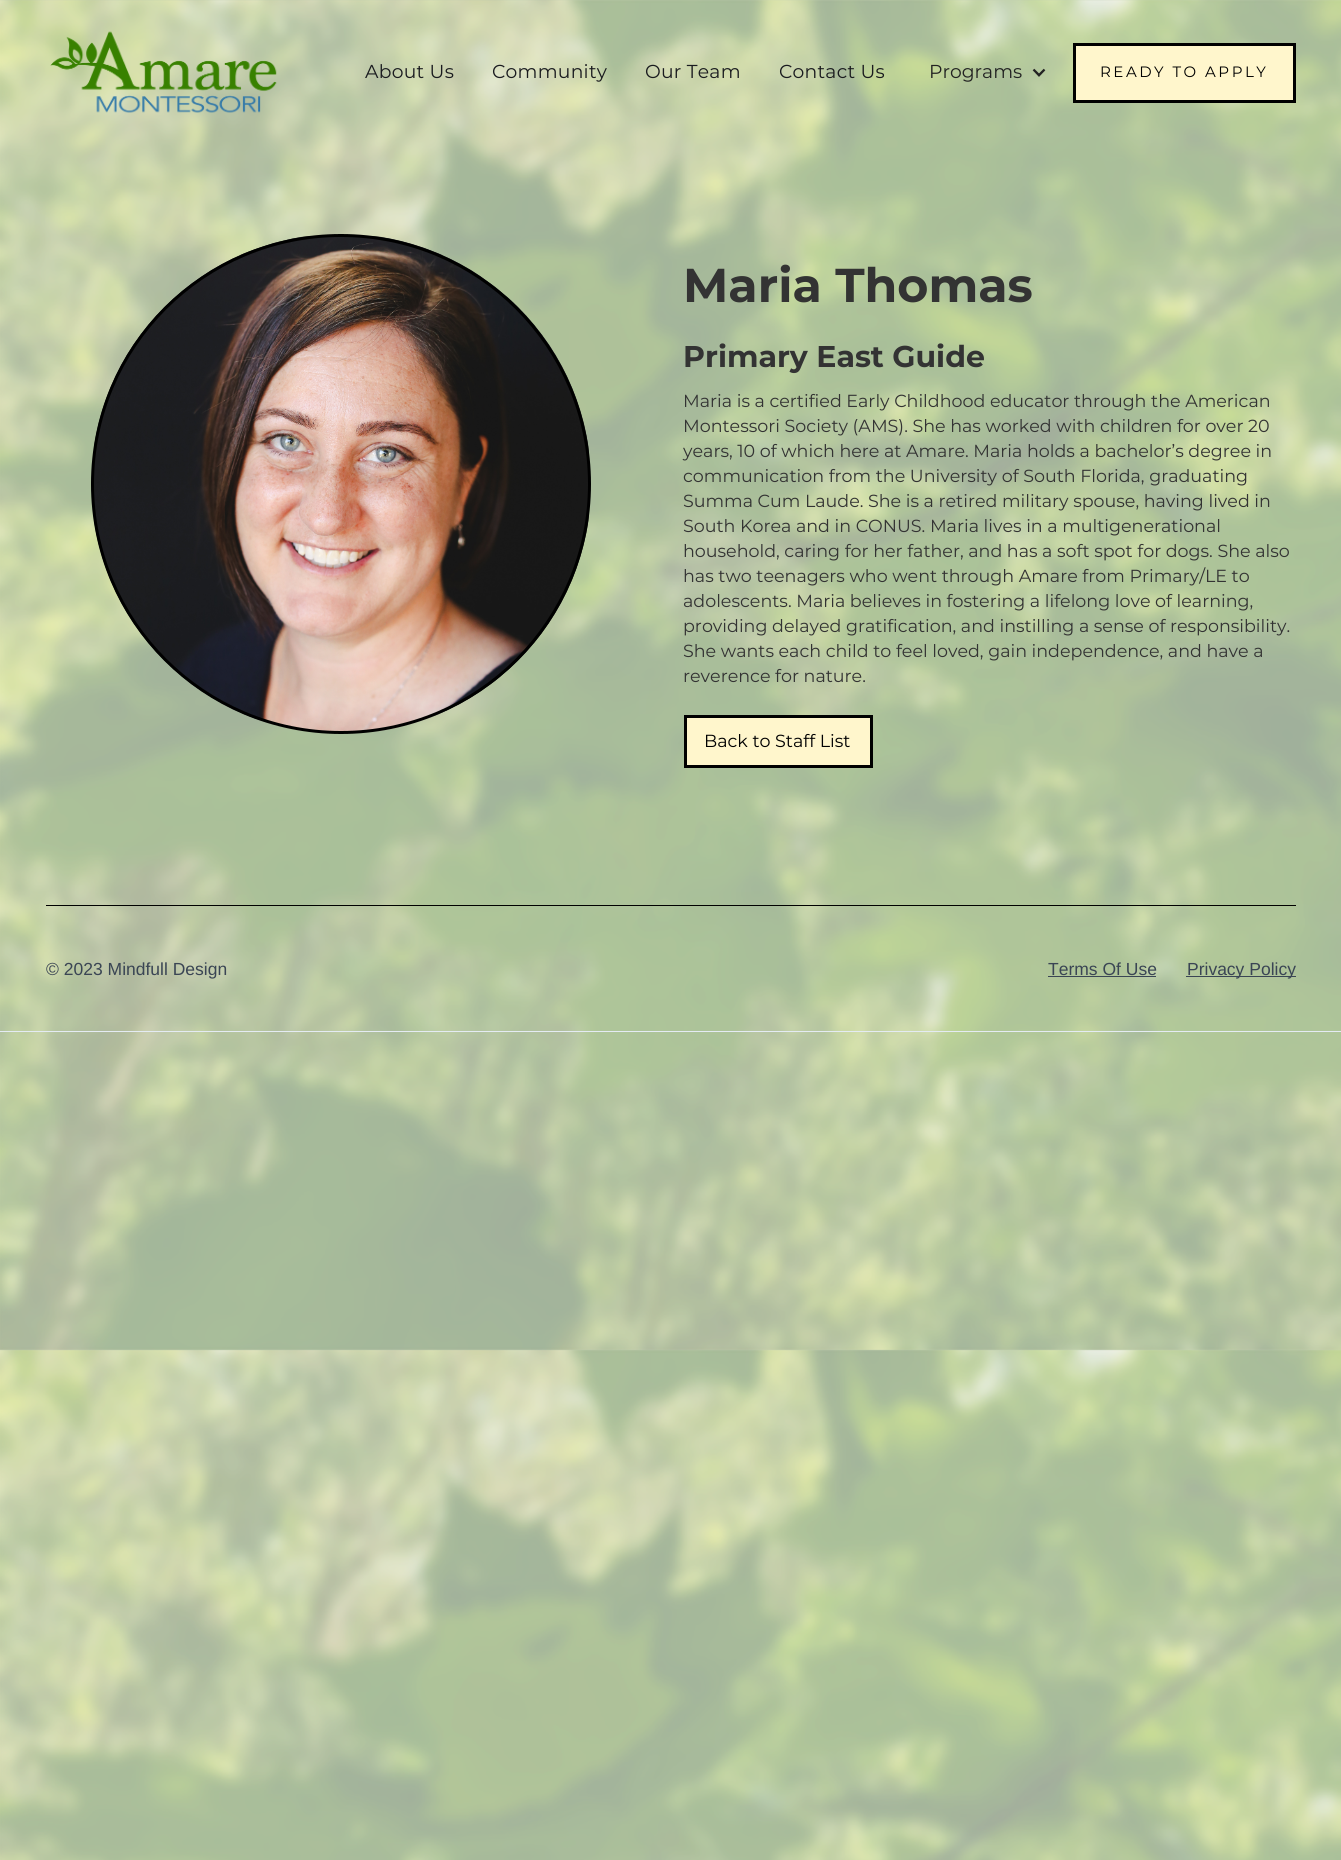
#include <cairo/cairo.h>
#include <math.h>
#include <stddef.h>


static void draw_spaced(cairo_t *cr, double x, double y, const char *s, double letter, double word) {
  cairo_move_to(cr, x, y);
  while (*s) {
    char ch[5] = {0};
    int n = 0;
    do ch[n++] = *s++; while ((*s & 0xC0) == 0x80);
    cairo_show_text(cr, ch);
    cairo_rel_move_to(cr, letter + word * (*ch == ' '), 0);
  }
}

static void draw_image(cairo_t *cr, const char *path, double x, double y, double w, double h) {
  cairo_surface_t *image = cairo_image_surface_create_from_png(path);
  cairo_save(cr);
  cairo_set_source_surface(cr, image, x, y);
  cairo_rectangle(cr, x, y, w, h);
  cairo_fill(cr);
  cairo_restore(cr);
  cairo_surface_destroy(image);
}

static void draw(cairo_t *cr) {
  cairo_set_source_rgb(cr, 216 / 255.0, 221 / 255.0, 197 / 255.0);
  cairo_paint(cr);
  draw_image(cr, "images/1.png", 0, 0, 1341, 1860);
  draw_image(cr, "images/2.png", 50, 31, 227, 82);
  draw_image(cr, "images/3.png", 1032, 68, 14, 9);
  cairo_set_source_rgb(cr, 1, 246 / 255.0, 204 / 255.0);
  cairo_rectangle(cr, 1074.5, 44.5, 220, 57);
  cairo_fill_preserve(cr);
  cairo_set_source_rgb(cr, 0, 0, 0);
  cairo_set_line_width(cr, 3);
  cairo_stroke(cr);
  draw_image(cr, "images/4.png", 93, 236, 496, 496);
  cairo_arc(cr, 341, 484, 248.5, 0, 2 * M_PI);
  cairo_stroke(cr);
  cairo_set_source_rgb(cr, 1, 246 / 255.0, 204 / 255.0);
  cairo_rectangle(cr, 685.5, 716.5, 186, 50);
  cairo_fill_preserve(cr);
  cairo_set_source_rgb(cr, 0, 0, 0);
  cairo_stroke(cr);
  cairo_set_source_rgb(cr, 228 / 255.0, 235 / 255.0, 243 / 255.0);
  cairo_rectangle(cr, 0, 1031, 1341, 1);
  cairo_fill(cr);
  cairo_set_source_rgb(cr, 0, 0, 0);
  cairo_rectangle(cr, 46, 905, 1250, 1);
  cairo_fill(cr);
  cairo_set_source_rgb(cr, 58 / 255.0, 69 / 255.0, 84 / 255.0);
  cairo_rectangle(cr, 1048, 976, 108, 1);
  cairo_fill(cr);
  cairo_rectangle(cr, 1186, 976, 110, 1);
  cairo_fill(cr);
  cairo_select_font_face(cr, "Montserrat", CAIRO_FONT_SLANT_NORMAL, CAIRO_FONT_WEIGHT_NORMAL);
  cairo_set_font_size(cr, 18.75);
  cairo_set_source_rgb(cr, 26 / 255.0, 27 / 255.0, 31 / 255.0);
  draw_spaced(cr, 365, 78, "About Us", 0.25, 0);
  draw_spaced(cr, 492, 78, "Community", 0.25, 0);
  draw_spaced(cr, 645, 78, "Our Team", 0.25, 0);
  draw_spaced(cr, 779, 78, "Contact Us", 0.25, 0);
  cairo_set_source_rgb(cr, 34 / 255.0, 34 / 255.0, 34 / 255.0);
  cairo_move_to(cr, 929, 78);
  cairo_show_text(cr, "Programs");
  cairo_set_font_size(cr, 15);
  cairo_set_source_rgb(cr, 0, 0, 0);
  draw_spaced(cr, 1100, 77, "READY TO APPLY", 2.5, 0);
  cairo_select_font_face(cr, "Montserrat", CAIRO_FONT_SLANT_NORMAL, CAIRO_FONT_WEIGHT_BOLD);
  cairo_set_font_size(cr, 47.5);
  cairo_set_source_rgb(cr, 51 / 255.0, 51 / 255.0, 51 / 255.0);
  cairo_move_to(cr, 683, 302);
  cairo_show_text(cr, "Maria Thomas");
  cairo_set_font_size(cr, 30);
  cairo_move_to(cr, 683, 367);
  cairo_show_text(cr, "Primary East Guide");
  cairo_select_font_face(cr, "Montserrat", CAIRO_FONT_SLANT_NORMAL, CAIRO_FONT_WEIGHT_NORMAL);
  cairo_set_font_size(cr, 17.5);
  cairo_move_to(cr, 683, 407);
  cairo_show_text(cr, "Maria is a certified Early Childhood educator through the American");
  cairo_move_to(cr, 683, 432);
  cairo_show_text(cr, "Montessori Society (AMS). She has worked with children for over 20");
  cairo_move_to(cr, 683, 457);
  cairo_show_text(cr, "years, 10 of which here at Amare. Maria holds a bachelor’s degree in");
  cairo_move_to(cr, 683, 482);
  cairo_show_text(cr, "communication from the University of South Florida, graduating");
  cairo_move_to(cr, 683, 507);
  cairo_show_text(cr, "Summa Cum Laude. She is a retired military spouse, having lived in");
  cairo_move_to(cr, 683, 532);
  cairo_show_text(cr, "South Korea and in CONUS. Maria lives in a multigenerational");
  cairo_move_to(cr, 683, 557);
  cairo_show_text(cr, "household, caring for her father, and has a soft spot for dogs. She also");
  cairo_move_to(cr, 683, 582);
  cairo_show_text(cr, "has two teenagers who went through Amare from Primary/LE to");
  cairo_move_to(cr, 683, 607);
  cairo_show_text(cr, "adolescents. Maria believes in fostering a lifelong love of learning,");
  cairo_move_to(cr, 683, 632);
  cairo_show_text(cr, "providing delayed gratification, and instilling a sense of responsibility.");
  cairo_move_to(cr, 683, 657);
  cairo_show_text(cr, "She wants each child to feel loved, gain independence, and have a");
  cairo_move_to(cr, 683, 682);
  cairo_show_text(cr, "reverence for nature.");
  cairo_set_source_rgb(cr, 0, 0, 0);
  cairo_move_to(cr, 704, 747);
  cairo_show_text(cr, "Back to Staff List");
  cairo_select_font_face(cr, "Liberation Sans", CAIRO_FONT_SLANT_NORMAL, CAIRO_FONT_WEIGHT_NORMAL);
  cairo_set_source_rgb(cr, 58 / 255.0, 69 / 255.0, 84 / 255.0);
  cairo_move_to(cr, 46, 975);
  cairo_show_text(cr, "© 2023 Mindfull Design");
  cairo_move_to(cr, 1048, 975);
  cairo_show_text(cr, "Terms Of Use");
  cairo_move_to(cr, 1187, 975);
  cairo_show_text(cr, "Privacy Policy");
}

int main(void) {
  cairo_surface_t *surface = cairo_image_surface_create(CAIRO_FORMAT_RGB24, 1341, 1860);
  cairo_t *cr = cairo_create(surface);
  cairo_font_options_t *options = cairo_font_options_create();
  cairo_font_options_set_hint_metrics(options, CAIRO_HINT_METRICS_OFF);
  cairo_font_options_set_hint_style(options, CAIRO_HINT_STYLE_NONE);
  cairo_set_font_options(cr, options);
  cairo_set_miter_limit(cr, 4);
  draw(cr);
  cairo_surface_write_to_png(surface, "out.png");
  cairo_font_options_destroy(options);
  cairo_destroy(cr);
  cairo_surface_destroy(surface);
  return 0;
}
